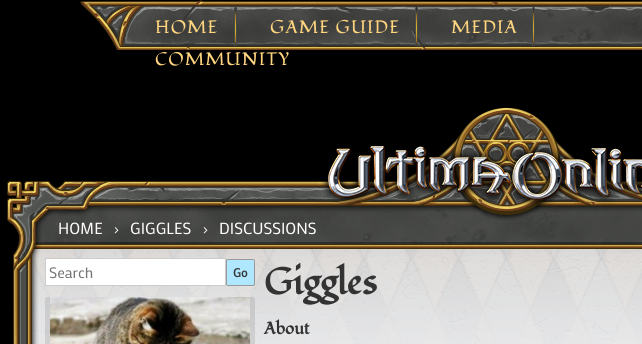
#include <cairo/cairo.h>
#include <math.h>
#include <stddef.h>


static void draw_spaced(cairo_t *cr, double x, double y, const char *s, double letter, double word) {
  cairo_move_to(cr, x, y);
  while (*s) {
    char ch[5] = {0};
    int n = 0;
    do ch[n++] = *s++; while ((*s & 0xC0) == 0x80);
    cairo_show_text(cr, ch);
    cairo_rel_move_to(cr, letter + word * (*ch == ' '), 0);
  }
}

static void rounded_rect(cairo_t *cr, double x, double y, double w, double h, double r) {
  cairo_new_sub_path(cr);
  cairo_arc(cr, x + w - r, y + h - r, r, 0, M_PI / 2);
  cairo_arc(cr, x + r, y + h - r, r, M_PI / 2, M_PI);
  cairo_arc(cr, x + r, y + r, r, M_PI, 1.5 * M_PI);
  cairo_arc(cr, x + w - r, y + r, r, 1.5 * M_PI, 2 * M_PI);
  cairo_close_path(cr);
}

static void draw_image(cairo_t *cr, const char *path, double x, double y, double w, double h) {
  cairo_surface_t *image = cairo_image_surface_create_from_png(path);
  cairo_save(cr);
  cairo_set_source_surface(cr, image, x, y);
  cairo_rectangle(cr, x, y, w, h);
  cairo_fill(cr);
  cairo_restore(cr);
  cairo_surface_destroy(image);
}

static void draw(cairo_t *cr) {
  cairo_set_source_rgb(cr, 0, 0, 0);
  cairo_paint(cr);
  draw_image(cr, "images/1.png", 80, 0, 562, 50);
  draw_image(cr, "images/2.png", 234, 7, 3, 40);
  draw_image(cr, "images/3.png", 415, 7, 3, 40);
  draw_image(cr, "images/4.png", 532, 7, 3, 40);
  draw_image(cr, "images/5.png", 7, 107, 635, 237);
  cairo_set_source_rgb(cr, 1, 1, 1);
  cairo_rectangle(cr, 45.5, 258.5, 180, 27);
  cairo_fill_preserve(cr);
  cairo_set_source_rgb(cr, 204 / 255.0, 204 / 255.0, 204 / 255.0);
  cairo_set_line_width(cr, 1);
  cairo_stroke(cr);
  cairo_set_source_rgb(cr, 174 / 255.0, 231 / 255.0, 254 / 255.0);
  rounded_rect(cr, 226.5, 259.5, 28, 26, 1.5);
  cairo_fill_preserve(cr);
  cairo_set_source_rgb(cr, 153 / 255.0, 153 / 255.0, 153 / 255.0);
  cairo_stroke(cr);
  cairo_set_source_rgba(cr, 0, 0, 0, 0.1);
  rounded_rect(cr, 45, 297, 210, 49, 2);
  cairo_fill(cr);
  draw_image(cr, "images/6.png", 50, 297, 200, 47);
  cairo_select_font_face(cr, "Fondamento", CAIRO_FONT_SLANT_NORMAL, CAIRO_FONT_WEIGHT_NORMAL);
  cairo_set_font_size(cr, 18);
  cairo_set_source_rgb(cr, 1, 213 / 255.0, 126 / 255.0);
  draw_spaced(cr, 155, 33, "HOME", 1, 0);
  draw_spaced(cr, 270, 33, "GAME GUIDE", 1, 0);
  draw_spaced(cr, 451, 33, "MEDIA", 1, 0);
  draw_spaced(cr, 155, 65, "COMMUNITY", 1, 0);
  cairo_select_font_face(cr, "Mako", CAIRO_FONT_SLANT_NORMAL, CAIRO_FONT_WEIGHT_NORMAL);
  cairo_set_font_size(cr, 16);
  cairo_set_source_rgb(cr, 1, 1, 1);
  cairo_move_to(cr, 58, 234);
  cairo_show_text(cr, "HOME");
  cairo_set_font_size(cr, 14);
  cairo_move_to(cr, 114, 234);
  cairo_show_text(cr, "›");
  cairo_set_font_size(cr, 16);
  cairo_move_to(cr, 130, 234);
  cairo_show_text(cr, "GIGGLES");
  cairo_set_font_size(cr, 14);
  cairo_move_to(cr, 203, 234);
  cairo_show_text(cr, "›");
  cairo_set_font_size(cr, 16);
  cairo_move_to(cr, 219, 234);
  cairo_show_text(cr, "DISCUSSIONS");
  cairo_set_font_size(cr, 15);
  cairo_set_source_rgb(cr, 117 / 255.0, 117 / 255.0, 117 / 255.0);
  cairo_move_to(cr, 49, 278);
  cairo_show_text(cr, "Search");
  cairo_select_font_face(cr, "Mako", CAIRO_FONT_SLANT_NORMAL, CAIRO_FONT_WEIGHT_BOLD);
  cairo_set_font_size(cr, 12);
  cairo_set_source_rgb(cr, 51 / 255.0, 51 / 255.0, 51 / 255.0);
  cairo_move_to(cr, 233, 277);
  cairo_show_text(cr, "Go");
  cairo_select_font_face(cr, "Fondamento", CAIRO_FONT_SLANT_NORMAL, CAIRO_FONT_WEIGHT_BOLD);
  cairo_set_font_size(cr, 36);
  cairo_move_to(cr, 264, 294);
  cairo_show_text(cr, "Giggles");
  cairo_set_font_size(cr, 17);
  cairo_move_to(cr, 264, 334);
  cairo_show_text(cr, "About");
}

int main(void) {
  cairo_surface_t *surface = cairo_image_surface_create(CAIRO_FORMAT_RGB24, 642, 344);
  cairo_t *cr = cairo_create(surface);
  cairo_font_options_t *options = cairo_font_options_create();
  cairo_font_options_set_hint_metrics(options, CAIRO_HINT_METRICS_OFF);
  cairo_font_options_set_hint_style(options, CAIRO_HINT_STYLE_NONE);
  cairo_set_font_options(cr, options);
  cairo_set_miter_limit(cr, 4);
  draw(cr);
  cairo_surface_write_to_png(surface, "out.png");
  cairo_font_options_destroy(options);
  cairo_destroy(cr);
  cairo_surface_destroy(surface);
  return 0;
}
